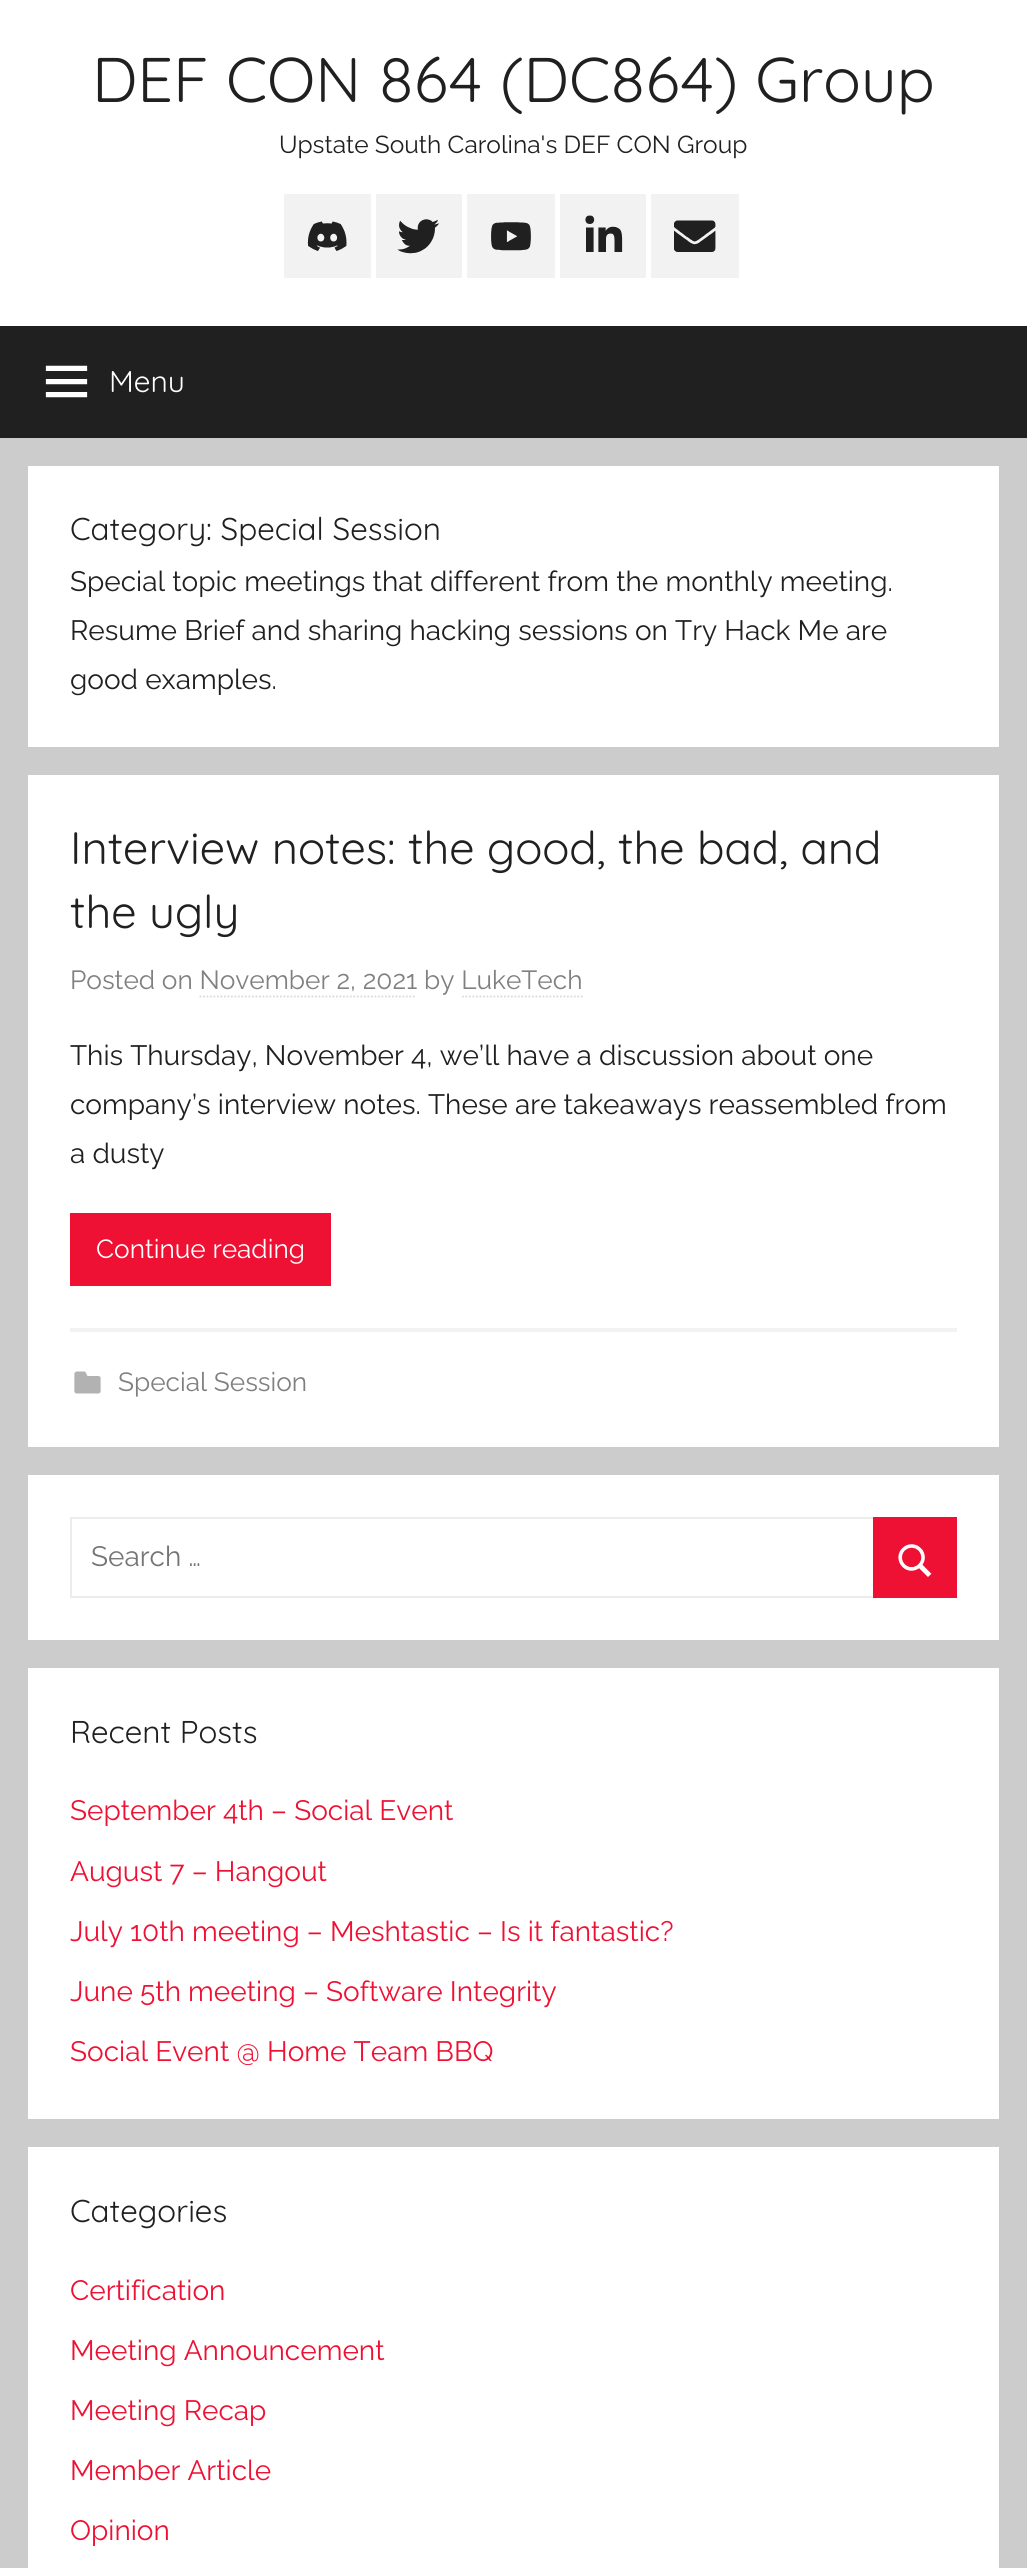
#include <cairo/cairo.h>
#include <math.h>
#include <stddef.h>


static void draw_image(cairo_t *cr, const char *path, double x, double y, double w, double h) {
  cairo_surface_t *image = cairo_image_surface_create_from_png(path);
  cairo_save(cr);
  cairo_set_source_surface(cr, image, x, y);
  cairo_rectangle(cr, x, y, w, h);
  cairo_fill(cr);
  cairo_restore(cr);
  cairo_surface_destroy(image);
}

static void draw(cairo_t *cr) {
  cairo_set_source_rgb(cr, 204 / 255.0, 204 / 255.0, 204 / 255.0);
  cairo_paint(cr);
  cairo_set_source_rgb(cr, 1, 1, 1);
  cairo_rectangle(cr, 0, 0, 1027, 326);
  cairo_fill(cr);
  cairo_set_source_rgb(cr, 242 / 255.0, 242 / 255.0, 242 / 255.0);
  cairo_rectangle(cr, 284, 194, 87, 84);
  cairo_fill(cr);
  draw_image(cr, "images/1.png", 307, 221, 40, 30);
  cairo_rectangle(cr, 376, 194, 86, 84);
  cairo_fill(cr);
  draw_image(cr, "images/2.png", 397, 219, 42, 35);
  cairo_rectangle(cr, 467, 194, 88, 84);
  cairo_fill(cr);
  draw_image(cr, "images/3.png", 491, 222, 40, 29);
  cairo_rectangle(cr, 560, 194, 86, 84);
  cairo_fill(cr);
  draw_image(cr, "images/4.png", 585, 215, 38, 37);
  cairo_rectangle(cr, 651, 194, 88, 84);
  cairo_fill(cr);
  draw_image(cr, "images/5.png", 674, 220, 42, 32);
  cairo_set_source_rgb(cr, 32 / 255.0, 32 / 255.0, 32 / 255.0);
  cairo_rectangle(cr, 0, 326, 1027, 112);
  cairo_fill(cr);
  draw_image(cr, "images/6.png", 45, 365, 43, 33);
  cairo_set_source_rgb(cr, 1, 1, 1);
  cairo_rectangle(cr, 28, 466, 971, 281);
  cairo_fill(cr);
  cairo_rectangle(cr, 28, 775, 971, 672);
  cairo_fill(cr);
  cairo_new_path(cr);
  cairo_move_to(cr, 199.5, 996.5);
  cairo_line_to(cr, 416.5, 996.5);
  cairo_set_source_rgb(cr, 217 / 255.0, 217 / 255.0, 217 / 255.0);
  cairo_set_line_width(cr, 1.8);
  cairo_set_dash(cr, (double[]){1.75, 1.75}, 2, 0);
  cairo_stroke(cr);
  cairo_new_path(cr);
  cairo_move_to(cr, 462, 996.5);
  cairo_line_to(cr, 583, 996.5);
  cairo_stroke(cr);
  cairo_set_source_rgb(cr, 238 / 255.0, 17 / 255.0, 51 / 255.0);
  cairo_rectangle(cr, 70, 1213, 261, 73);
  cairo_fill(cr);
  cairo_set_source_rgb(cr, 242 / 255.0, 242 / 255.0, 242 / 255.0);
  cairo_rectangle(cr, 70, 1328, 887, 4);
  cairo_fill(cr);
  draw_image(cr, "images/7.png", 74, 1371, 27, 23);
  cairo_set_source_rgb(cr, 1, 1, 1);
  cairo_rectangle(cr, 28, 1475, 971, 165);
  cairo_fill(cr);
  cairo_rectangle(cr, 71, 1518, 885, 79);
  cairo_set_source_rgb(cr, 236 / 255.0, 236 / 255.0, 236 / 255.0);
  cairo_set_line_width(cr, 2);
  cairo_set_dash(cr, NULL, 0, 0);
  cairo_stroke(cr);
  cairo_set_source_rgb(cr, 238 / 255.0, 17 / 255.0, 51 / 255.0);
  cairo_rectangle(cr, 873, 1517, 84, 81);
  cairo_fill(cr);
  draw_image(cr, "images/8.png", 898, 1544, 34, 33);
  cairo_set_source_rgb(cr, 1, 1, 1);
  cairo_rectangle(cr, 28, 1668, 971, 451);
  cairo_fill(cr);
  cairo_rectangle(cr, 28, 2147, 971, 421);
  cairo_fill(cr);
  cairo_select_font_face(cr, "Quicksand Light", CAIRO_FONT_SLANT_NORMAL, CAIRO_FONT_WEIGHT_NORMAL);
  cairo_set_font_size(cr, 63);
  cairo_set_source_rgb(cr, 32 / 255.0, 32 / 255.0, 32 / 255.0);
  cairo_move_to(cr, 92, 102);
  cairo_show_text(cr, "DEF CON 864 (DC864) Group");
  cairo_select_font_face(cr, "Raleway Thin", CAIRO_FONT_SLANT_NORMAL, CAIRO_FONT_WEIGHT_NORMAL);
  cairo_set_font_size(cr, 24.5);
  cairo_move_to(cr, 279, 153);
  cairo_show_text(cr, "Upstate South Carolina's DEF CON Group");
  cairo_select_font_face(cr, "Quicksand Light", CAIRO_FONT_SLANT_NORMAL, CAIRO_FONT_WEIGHT_NORMAL);
  cairo_set_font_size(cr, 30);
  cairo_set_source_rgb(cr, 1, 1, 1);
  cairo_move_to(cr, 109, 392);
  cairo_show_text(cr, "Menu");
  cairo_set_font_size(cr, 31.5);
  cairo_set_source_rgb(cr, 32 / 255.0, 32 / 255.0, 32 / 255.0);
  cairo_move_to(cr, 70, 540);
  cairo_show_text(cr, "Category: Special Session");
  cairo_select_font_face(cr, "Raleway Thin", CAIRO_FONT_SLANT_NORMAL, CAIRO_FONT_WEIGHT_NORMAL);
  cairo_set_font_size(cr, 28);
  cairo_move_to(cr, 70, 591);
  cairo_show_text(cr, "Special topic meetings that different from the monthly meeting.");
  cairo_move_to(cr, 70, 640);
  cairo_show_text(cr, "Resume Brief and sharing hacking sessions on Try Hack Me are");
  cairo_move_to(cr, 70, 689);
  cairo_show_text(cr, "good examples.");
  cairo_select_font_face(cr, "Quicksand Light", CAIRO_FONT_SLANT_NORMAL, CAIRO_FONT_WEIGHT_NORMAL);
  cairo_set_font_size(cr, 45.5);
  cairo_move_to(cr, 70, 864);
  cairo_show_text(cr, "Interview notes: the good, the bad, and");
  cairo_move_to(cr, 70, 928);
  cairo_show_text(cr, "the ugly");
  cairo_select_font_face(cr, "Raleway Thin", CAIRO_FONT_SLANT_NORMAL, CAIRO_FONT_WEIGHT_NORMAL);
  cairo_set_font_size(cr, 26.25);
  cairo_set_source_rgb(cr, 128 / 255.0, 128 / 255.0, 128 / 255.0);
  cairo_move_to(cr, 70, 989);
  cairo_show_text(cr, "Posted on November 2, 2021 by LukeTech");
  cairo_set_font_size(cr, 28);
  cairo_set_source_rgb(cr, 32 / 255.0, 32 / 255.0, 32 / 255.0);
  cairo_move_to(cr, 70, 1065);
  cairo_show_text(cr, "This Thursday, November 4, we’ll have a discussion about one");
  cairo_move_to(cr, 70, 1114);
  cairo_show_text(cr, "company’s interview notes. These are takeaways reassembled from");
  cairo_move_to(cr, 70, 1163);
  cairo_show_text(cr, "a dusty");
  cairo_set_font_size(cr, 26.25);
  cairo_set_source_rgb(cr, 1, 1, 1);
  cairo_move_to(cr, 96, 1258);
  cairo_show_text(cr, "Continue reading");
  cairo_set_source_rgb(cr, 128 / 255.0, 128 / 255.0, 128 / 255.0);
  cairo_move_to(cr, 118, 1391);
  cairo_show_text(cr, "Special Session");
  cairo_set_font_size(cr, 28);
  cairo_set_source_rgb(cr, 117 / 255.0, 117 / 255.0, 117 / 255.0);
  cairo_move_to(cr, 91, 1566);
  cairo_show_text(cr, "Search …");
  cairo_select_font_face(cr, "Quicksand Light", CAIRO_FONT_SLANT_NORMAL, CAIRO_FONT_WEIGHT_NORMAL);
  cairo_set_font_size(cr, 31.5);
  cairo_set_source_rgb(cr, 32 / 255.0, 32 / 255.0, 32 / 255.0);
  cairo_move_to(cr, 70, 1743);
  cairo_show_text(cr, "Recent Posts");
  cairo_select_font_face(cr, "Raleway Thin", CAIRO_FONT_SLANT_NORMAL, CAIRO_FONT_WEIGHT_NORMAL);
  cairo_set_font_size(cr, 28);
  cairo_set_source_rgb(cr, 238 / 255.0, 17 / 255.0, 51 / 255.0);
  cairo_move_to(cr, 70, 1820);
  cairo_show_text(cr, "September 4th – Social Event");
  cairo_move_to(cr, 70, 1881);
  cairo_show_text(cr, "August 7 – Hangout");
  cairo_move_to(cr, 70, 1941);
  cairo_show_text(cr, "July 10th meeting – Meshtastic – Is it fantastic?");
  cairo_move_to(cr, 70, 2001);
  cairo_show_text(cr, "June 5th meeting – Software Integrity");
  cairo_move_to(cr, 70, 2061);
  cairo_show_text(cr, "Social Event @ Home Team BBQ");
  cairo_select_font_face(cr, "Quicksand Light", CAIRO_FONT_SLANT_NORMAL, CAIRO_FONT_WEIGHT_NORMAL);
  cairo_set_font_size(cr, 31.5);
  cairo_set_source_rgb(cr, 32 / 255.0, 32 / 255.0, 32 / 255.0);
  cairo_move_to(cr, 70, 2222);
  cairo_show_text(cr, "Categories");
  cairo_select_font_face(cr, "Raleway Thin", CAIRO_FONT_SLANT_NORMAL, CAIRO_FONT_WEIGHT_NORMAL);
  cairo_set_font_size(cr, 28);
  cairo_set_source_rgb(cr, 238 / 255.0, 17 / 255.0, 51 / 255.0);
  cairo_move_to(cr, 70, 2300);
  cairo_show_text(cr, "Certification");
  cairo_move_to(cr, 70, 2360);
  cairo_show_text(cr, "Meeting Announcement");
  cairo_move_to(cr, 70, 2420);
  cairo_show_text(cr, "Meeting Recap");
  cairo_move_to(cr, 70, 2480);
  cairo_show_text(cr, "Member Article");
  cairo_move_to(cr, 70, 2540);
  cairo_show_text(cr, "Opinion");
}

int main(void) {
  cairo_surface_t *surface = cairo_image_surface_create(CAIRO_FORMAT_RGB24, 1027, 2568);
  cairo_t *cr = cairo_create(surface);
  cairo_font_options_t *options = cairo_font_options_create();
  cairo_font_options_set_hint_metrics(options, CAIRO_HINT_METRICS_OFF);
  cairo_font_options_set_hint_style(options, CAIRO_HINT_STYLE_NONE);
  cairo_set_font_options(cr, options);
  cairo_set_miter_limit(cr, 4);
  draw(cr);
  cairo_surface_write_to_png(surface, "out.png");
  cairo_font_options_destroy(options);
  cairo_destroy(cr);
  cairo_surface_destroy(surface);
  return 0;
}
